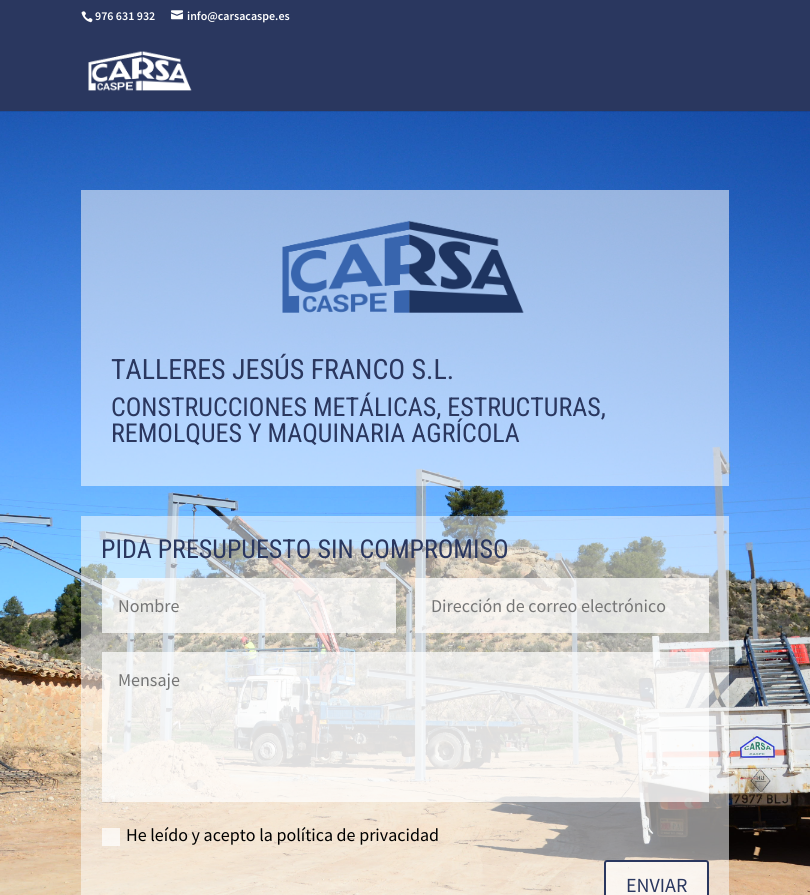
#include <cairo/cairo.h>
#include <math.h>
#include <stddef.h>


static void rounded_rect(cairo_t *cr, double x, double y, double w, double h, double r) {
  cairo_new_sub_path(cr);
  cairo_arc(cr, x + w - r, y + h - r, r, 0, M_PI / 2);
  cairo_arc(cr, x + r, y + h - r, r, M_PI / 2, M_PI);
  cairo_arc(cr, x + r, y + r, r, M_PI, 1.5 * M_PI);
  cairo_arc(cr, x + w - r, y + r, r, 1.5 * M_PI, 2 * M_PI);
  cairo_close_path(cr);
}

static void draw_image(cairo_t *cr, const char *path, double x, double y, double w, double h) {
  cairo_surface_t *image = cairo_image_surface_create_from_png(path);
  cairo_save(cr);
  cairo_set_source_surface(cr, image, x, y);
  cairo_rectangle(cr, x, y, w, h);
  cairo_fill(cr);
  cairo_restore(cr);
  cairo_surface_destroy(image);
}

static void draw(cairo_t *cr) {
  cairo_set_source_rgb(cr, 1, 1, 1);
  cairo_paint(cr);
  draw_image(cr, "images/4.png", 0, 111, 810, 784);
  cairo_set_source_rgba(cr, 0, 0, 0, 0.1);
  cairo_rectangle(cr, 0, 111, 810, 1);
  cairo_fill(cr);
  cairo_set_source_rgb(cr, 42 / 255.0, 55 / 255.0, 95 / 255.0);
  cairo_rectangle(cr, 0, 0, 810, 111);
  cairo_fill(cr);
  draw_image(cr, "images/1.png", 88, 51, 104, 40);
  draw_image(cr, "images/2.png", 81, 11, 12, 12);
  draw_image(cr, "images/3.png", 171, 10, 12, 10);
  cairo_set_source_rgba(cr, 1, 1, 1, 0.53);
  cairo_rectangle(cr, 81, 190, 648, 296);
  cairo_fill(cr);
  draw_image(cr, "images/5.png", 282, 220, 242, 93);
  cairo_rectangle(cr, 81, 516, 648, 379);
  cairo_fill(cr);
  cairo_set_source_rgba(cr, 1, 1, 1, 0.72);
  cairo_rectangle(cr, 102, 578, 294, 55);
  cairo_fill(cr);
  cairo_rectangle(cr, 415, 578, 294, 55);
  cairo_fill(cr);
  cairo_rectangle(cr, 102, 652, 607, 150);
  cairo_fill(cr);
  cairo_rectangle(cr, 102, 828, 18, 18);
  cairo_fill(cr);
  cairo_set_source_rgba(cr, 1, 1, 1, 0.67);
  rounded_rect(cr, 605, 861, 103, 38, 2);
  cairo_fill_preserve(cr);
  cairo_set_source_rgb(cr, 42 / 255.0, 55 / 255.0, 95 / 255.0);
  cairo_stroke(cr);
  cairo_select_font_face(cr, "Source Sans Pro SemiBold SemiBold", CAIRO_FONT_SLANT_NORMAL, CAIRO_FONT_WEIGHT_NORMAL);
  cairo_set_font_size(cr, 12);
  cairo_set_source_rgb(cr, 1, 1, 1);
  cairo_move_to(cr, 95, 20);
  cairo_show_text(cr, "976 631 932");
  cairo_move_to(cr, 187, 20);
  cairo_show_text(cr, "info@carsacaspe.es");
  cairo_select_font_face(cr, "Roboto Condensed", CAIRO_FONT_SLANT_NORMAL, CAIRO_FONT_WEIGHT_NORMAL);
  cairo_set_font_size(cr, 28);
  cairo_set_source_rgb(cr, 42 / 255.0, 55 / 255.0, 95 / 255.0);
  cairo_move_to(cr, 111, 379);
  cairo_show_text(cr, "TALLERES JESÚS FRANCO S.L.");
  cairo_set_font_size(cr, 26);
  cairo_move_to(cr, 111, 416);
  cairo_show_text(cr, "CONSTRUCCIONES METÁLICAS, ESTRUCTURAS,");
  cairo_move_to(cr, 111, 442);
  cairo_show_text(cr, "REMOLQUES Y MAQUINARIA AGRÍCOLA");
  cairo_move_to(cr, 101, 558);
  cairo_show_text(cr, "PIDA PRESUPUESTO SIN COMPROMISO");
  cairo_select_font_face(cr, "Source Sans Pro", CAIRO_FONT_SLANT_NORMAL, CAIRO_FONT_WEIGHT_NORMAL);
  cairo_set_font_size(cr, 18);
  cairo_set_source_rgb(cr, 117 / 255.0, 117 / 255.0, 117 / 255.0);
  cairo_move_to(cr, 118, 612);
  cairo_show_text(cr, "Nombre");
  cairo_move_to(cr, 431, 612);
  cairo_show_text(cr, "Dirección de correo electrónico");
  cairo_move_to(cr, 118, 686);
  cairo_show_text(cr, "Mensaje");
  cairo_set_source_rgb(cr, 0, 0, 0);
  cairo_move_to(cr, 126, 841);
  cairo_show_text(cr, "He leído y acepto la política de privacidad");
  cairo_set_font_size(cr, 20);
  cairo_set_source_rgb(cr, 42 / 255.0, 55 / 255.0, 95 / 255.0);
  cairo_move_to(cr, 626, 892);
  cairo_show_text(cr, "ENVIAR");
}

int main(void) {
  cairo_surface_t *surface = cairo_image_surface_create(CAIRO_FORMAT_RGB24, 810, 895);
  cairo_t *cr = cairo_create(surface);
  cairo_font_options_t *options = cairo_font_options_create();
  cairo_font_options_set_hint_metrics(options, CAIRO_HINT_METRICS_OFF);
  cairo_font_options_set_hint_style(options, CAIRO_HINT_STYLE_NONE);
  cairo_set_font_options(cr, options);
  cairo_set_miter_limit(cr, 4);
  draw(cr);
  cairo_surface_write_to_png(surface, "out.png");
  cairo_font_options_destroy(options);
  cairo_destroy(cr);
  cairo_surface_destroy(surface);
  return 0;
}
